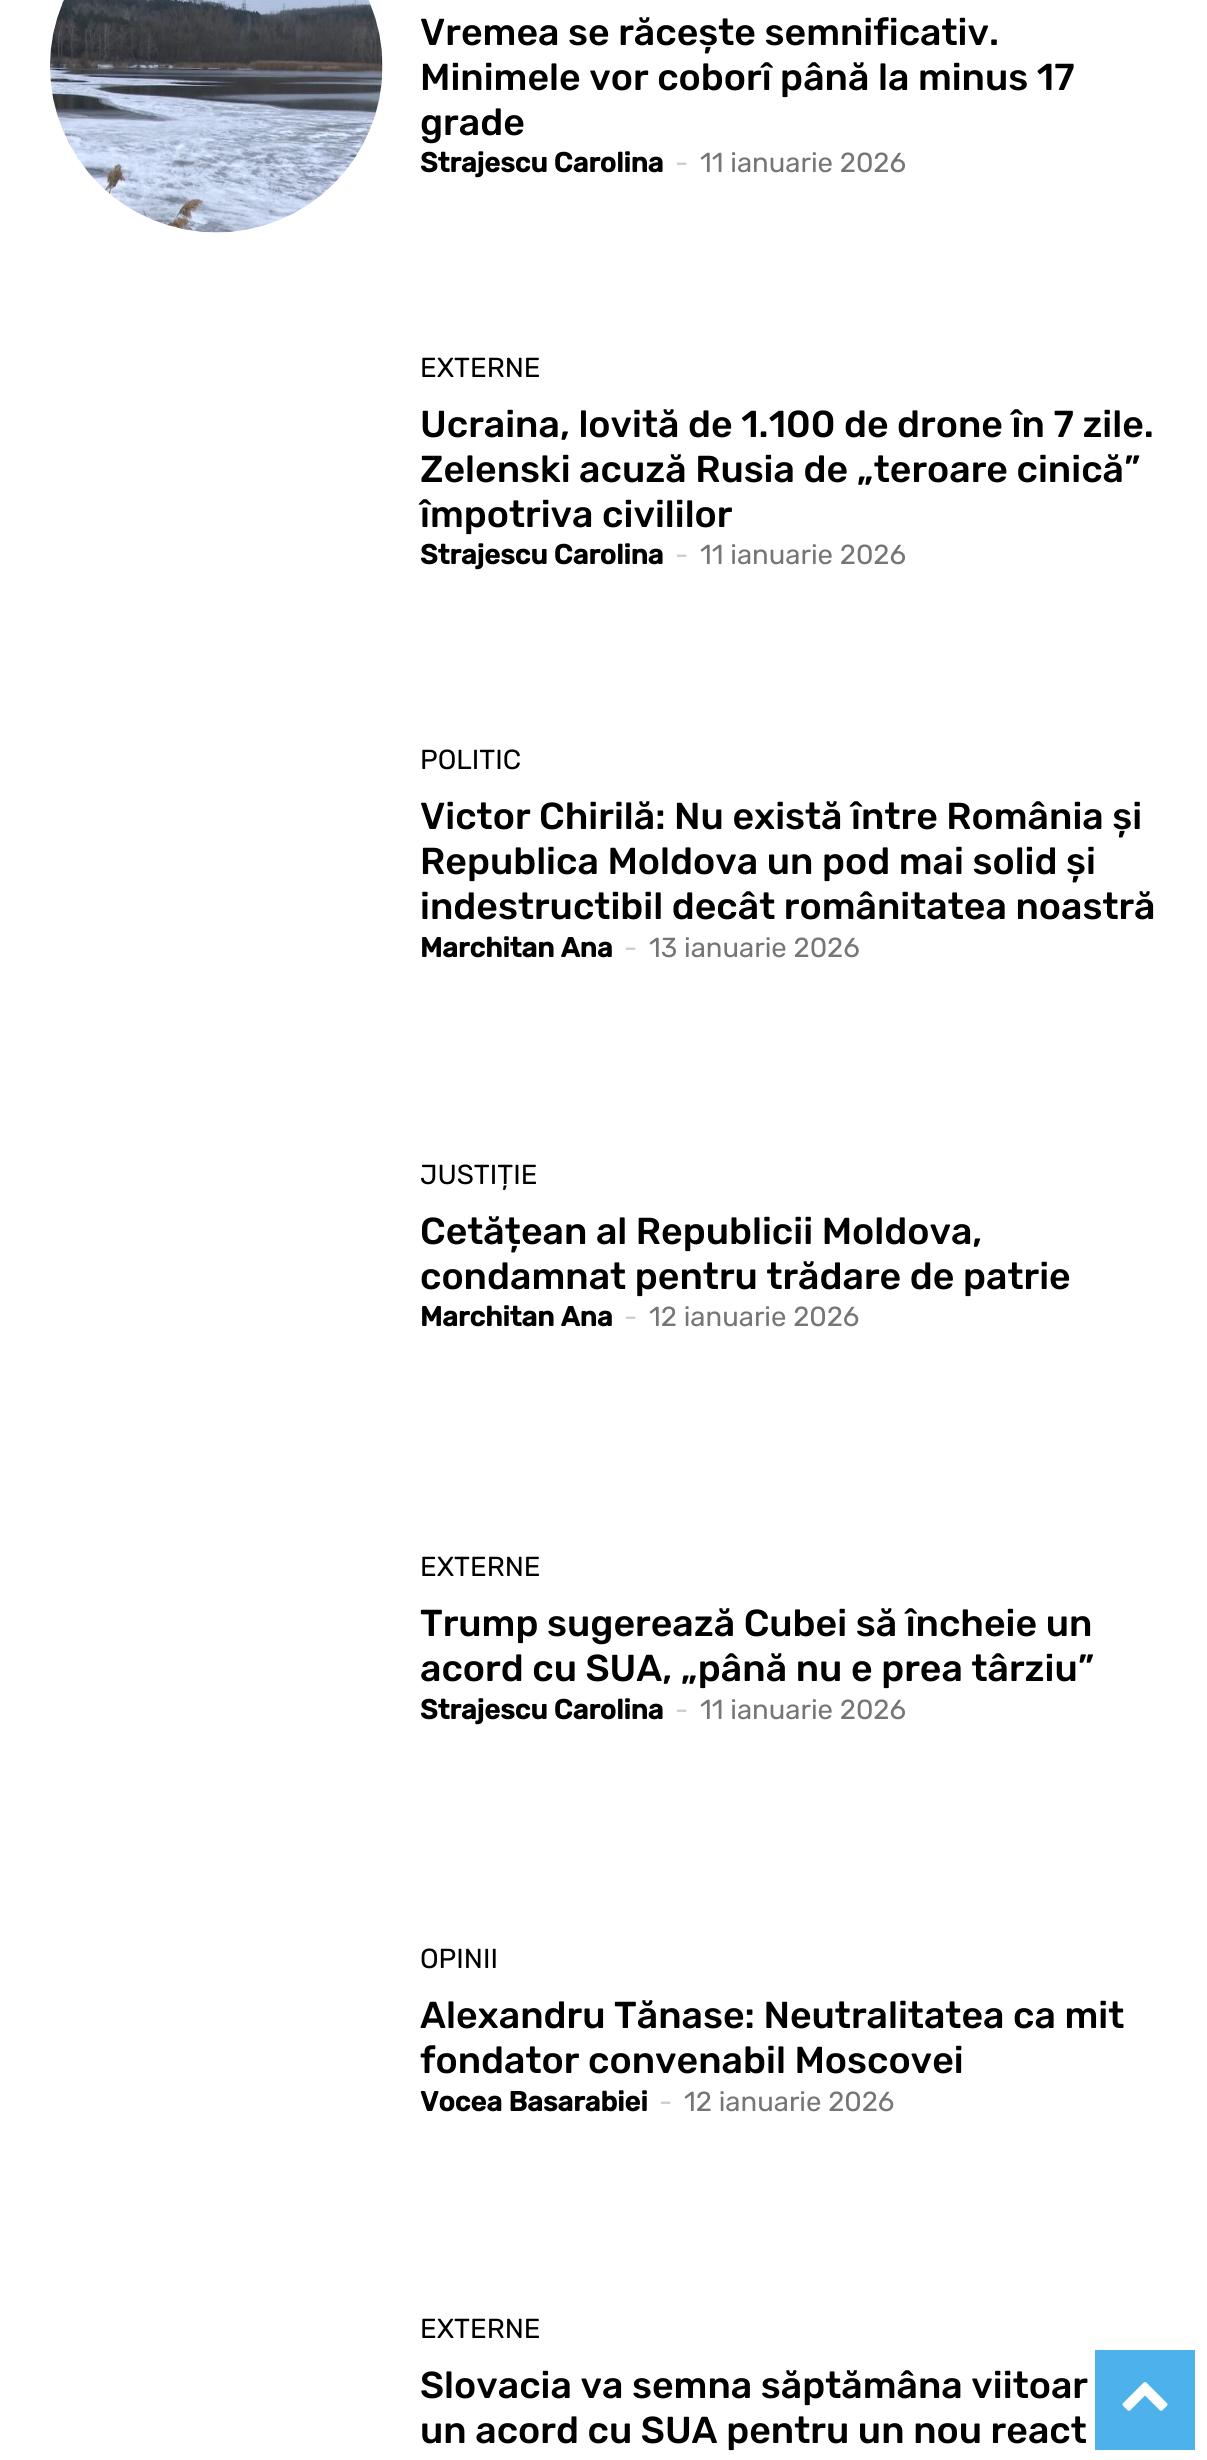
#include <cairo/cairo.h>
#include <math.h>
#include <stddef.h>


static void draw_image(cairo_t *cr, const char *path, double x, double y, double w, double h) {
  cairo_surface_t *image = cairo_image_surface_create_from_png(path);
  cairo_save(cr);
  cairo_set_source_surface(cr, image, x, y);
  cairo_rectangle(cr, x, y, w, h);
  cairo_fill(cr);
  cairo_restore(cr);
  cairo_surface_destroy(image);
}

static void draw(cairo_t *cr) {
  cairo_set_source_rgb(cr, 1, 1, 1);
  cairo_paint(cr);
  draw_image(cr, "images/1.png", 50, 0, 333, 233);
  cairo_set_source_rgb(cr, 77 / 255.0, 178 / 255.0, 236 / 255.0);
  cairo_rectangle(cr, 1095, 2350, 100, 100);
  cairo_fill(cr);
  draw_image(cr, "images/2.png", 1122, 2382, 46, 29);
  cairo_select_font_face(cr, "Rubik Medium", CAIRO_FONT_SLANT_NORMAL, CAIRO_FONT_WEIGHT_NORMAL);
  cairo_set_font_size(cr, 37.5);
  cairo_set_source_rgb(cr, 0, 0, 0);
  cairo_move_to(cr, 420, 45);
  cairo_show_text(cr, "Vremea se răcește semnificativ.");
  cairo_move_to(cr, 420, 90);
  cairo_show_text(cr, "Minimele vor coborî până la minus 17");
  cairo_move_to(cr, 420, 135);
  cairo_show_text(cr, "grade");
  cairo_select_font_face(cr, "Rubik", CAIRO_FONT_SLANT_NORMAL, CAIRO_FONT_WEIGHT_BOLD);
  cairo_set_font_size(cr, 27.5);
  cairo_move_to(cr, 420, 172);
  cairo_show_text(cr, "Strajescu Carolina");
  cairo_select_font_face(cr, "Rubik", CAIRO_FONT_SLANT_NORMAL, CAIRO_FONT_WEIGHT_NORMAL);
  cairo_set_source_rgb(cr, 204 / 255.0, 204 / 255.0, 204 / 255.0);
  cairo_move_to(cr, 675, 172);
  cairo_show_text(cr, "-");
  cairo_set_source_rgb(cr, 118 / 255.0, 118 / 255.0, 118 / 255.0);
  cairo_move_to(cr, 700, 172);
  cairo_show_text(cr, "11 ianuarie 2026");
  cairo_set_source_rgb(cr, 0, 0, 0);
  cairo_move_to(cr, 420, 377);
  cairo_show_text(cr, "EXTERNE");
  cairo_select_font_face(cr, "Rubik Medium", CAIRO_FONT_SLANT_NORMAL, CAIRO_FONT_WEIGHT_NORMAL);
  cairo_set_font_size(cr, 37.5);
  cairo_move_to(cr, 420, 437);
  cairo_show_text(cr, "Ucraina, lovită de 1.100 de drone în 7 zile.");
  cairo_move_to(cr, 420, 482);
  cairo_show_text(cr, "Zelenski acuză Rusia de „teroare cinică”");
  cairo_move_to(cr, 420, 527);
  cairo_show_text(cr, "împotriva civililor");
  cairo_select_font_face(cr, "Rubik", CAIRO_FONT_SLANT_NORMAL, CAIRO_FONT_WEIGHT_BOLD);
  cairo_set_font_size(cr, 27.5);
  cairo_move_to(cr, 420, 564);
  cairo_show_text(cr, "Strajescu Carolina");
  cairo_select_font_face(cr, "Rubik", CAIRO_FONT_SLANT_NORMAL, CAIRO_FONT_WEIGHT_NORMAL);
  cairo_set_source_rgb(cr, 204 / 255.0, 204 / 255.0, 204 / 255.0);
  cairo_move_to(cr, 675, 564);
  cairo_show_text(cr, "-");
  cairo_set_source_rgb(cr, 118 / 255.0, 118 / 255.0, 118 / 255.0);
  cairo_move_to(cr, 700, 564);
  cairo_show_text(cr, "11 ianuarie 2026");
  cairo_set_source_rgb(cr, 0, 0, 0);
  cairo_move_to(cr, 420, 769);
  cairo_show_text(cr, "POLITIC");
  cairo_select_font_face(cr, "Rubik Medium", CAIRO_FONT_SLANT_NORMAL, CAIRO_FONT_WEIGHT_NORMAL);
  cairo_set_font_size(cr, 37.5);
  cairo_move_to(cr, 420, 829);
  cairo_show_text(cr, "Victor Chirilă: Nu există între România și");
  cairo_move_to(cr, 420, 874);
  cairo_show_text(cr, "Republica Moldova un pod mai solid și");
  cairo_move_to(cr, 420, 919);
  cairo_show_text(cr, "indestructibil decât românitatea noastră");
  cairo_select_font_face(cr, "Rubik", CAIRO_FONT_SLANT_NORMAL, CAIRO_FONT_WEIGHT_BOLD);
  cairo_set_font_size(cr, 27.5);
  cairo_move_to(cr, 420, 957);
  cairo_show_text(cr, "Marchitan Ana");
  cairo_select_font_face(cr, "Rubik", CAIRO_FONT_SLANT_NORMAL, CAIRO_FONT_WEIGHT_NORMAL);
  cairo_set_source_rgb(cr, 204 / 255.0, 204 / 255.0, 204 / 255.0);
  cairo_move_to(cr, 624, 957);
  cairo_show_text(cr, "-");
  cairo_set_source_rgb(cr, 118 / 255.0, 118 / 255.0, 118 / 255.0);
  cairo_move_to(cr, 649, 957);
  cairo_show_text(cr, "13 ianuarie 2026");
  cairo_set_source_rgb(cr, 0, 0, 0);
  cairo_move_to(cr, 420, 1184);
  cairo_show_text(cr, "JUSTIȚIE");
  cairo_select_font_face(cr, "Rubik Medium", CAIRO_FONT_SLANT_NORMAL, CAIRO_FONT_WEIGHT_NORMAL);
  cairo_set_font_size(cr, 37.5);
  cairo_move_to(cr, 420, 1244);
  cairo_show_text(cr, "Cetățean al Republicii Moldova,");
  cairo_move_to(cr, 420, 1289);
  cairo_show_text(cr, "condamnat pentru trădare de patrie");
  cairo_select_font_face(cr, "Rubik", CAIRO_FONT_SLANT_NORMAL, CAIRO_FONT_WEIGHT_BOLD);
  cairo_set_font_size(cr, 27.5);
  cairo_move_to(cr, 420, 1326);
  cairo_show_text(cr, "Marchitan Ana");
  cairo_select_font_face(cr, "Rubik", CAIRO_FONT_SLANT_NORMAL, CAIRO_FONT_WEIGHT_NORMAL);
  cairo_set_source_rgb(cr, 204 / 255.0, 204 / 255.0, 204 / 255.0);
  cairo_move_to(cr, 624, 1326);
  cairo_show_text(cr, "-");
  cairo_set_source_rgb(cr, 118 / 255.0, 118 / 255.0, 118 / 255.0);
  cairo_move_to(cr, 649, 1326);
  cairo_show_text(cr, "12 ianuarie 2026");
  cairo_set_source_rgb(cr, 0, 0, 0);
  cairo_move_to(cr, 420, 1576);
  cairo_show_text(cr, "EXTERNE");
  cairo_select_font_face(cr, "Rubik Medium", CAIRO_FONT_SLANT_NORMAL, CAIRO_FONT_WEIGHT_NORMAL);
  cairo_set_font_size(cr, 37.5);
  cairo_move_to(cr, 420, 1636);
  cairo_show_text(cr, "Trump sugerează Cubei să încheie un");
  cairo_move_to(cr, 420, 1681);
  cairo_show_text(cr, "acord cu SUA, „până nu e prea târziu”");
  cairo_select_font_face(cr, "Rubik", CAIRO_FONT_SLANT_NORMAL, CAIRO_FONT_WEIGHT_BOLD);
  cairo_set_font_size(cr, 27.5);
  cairo_move_to(cr, 420, 1719);
  cairo_show_text(cr, "Strajescu Carolina");
  cairo_select_font_face(cr, "Rubik", CAIRO_FONT_SLANT_NORMAL, CAIRO_FONT_WEIGHT_NORMAL);
  cairo_set_source_rgb(cr, 204 / 255.0, 204 / 255.0, 204 / 255.0);
  cairo_move_to(cr, 675, 1719);
  cairo_show_text(cr, "-");
  cairo_set_source_rgb(cr, 118 / 255.0, 118 / 255.0, 118 / 255.0);
  cairo_move_to(cr, 700, 1719);
  cairo_show_text(cr, "11 ianuarie 2026");
  cairo_set_source_rgb(cr, 0, 0, 0);
  cairo_move_to(cr, 420, 1968);
  cairo_show_text(cr, "OPINII");
  cairo_select_font_face(cr, "Rubik Medium", CAIRO_FONT_SLANT_NORMAL, CAIRO_FONT_WEIGHT_NORMAL);
  cairo_set_font_size(cr, 37.5);
  cairo_move_to(cr, 420, 2028);
  cairo_show_text(cr, "Alexandru Tănase: Neutralitatea ca mit");
  cairo_move_to(cr, 420, 2073);
  cairo_show_text(cr, "fondator convenabil Moscovei");
  cairo_select_font_face(cr, "Rubik", CAIRO_FONT_SLANT_NORMAL, CAIRO_FONT_WEIGHT_BOLD);
  cairo_set_font_size(cr, 27.5);
  cairo_move_to(cr, 420, 2111);
  cairo_show_text(cr, "Vocea Basarabiei");
  cairo_select_font_face(cr, "Rubik", CAIRO_FONT_SLANT_NORMAL, CAIRO_FONT_WEIGHT_NORMAL);
  cairo_set_source_rgb(cr, 204 / 255.0, 204 / 255.0, 204 / 255.0);
  cairo_move_to(cr, 659, 2111);
  cairo_show_text(cr, "-");
  cairo_set_source_rgb(cr, 118 / 255.0, 118 / 255.0, 118 / 255.0);
  cairo_move_to(cr, 684, 2111);
  cairo_show_text(cr, "12 ianuarie 2026");
  cairo_set_source_rgb(cr, 0, 0, 0);
  cairo_move_to(cr, 420, 2338);
  cairo_show_text(cr, "EXTERNE");
  cairo_select_font_face(cr, "Rubik Medium", CAIRO_FONT_SLANT_NORMAL, CAIRO_FONT_WEIGHT_NORMAL);
  cairo_set_font_size(cr, 37.5);
  cairo_move_to(cr, 420, 2398);
  cairo_show_text(cr, "Slovacia va semna săptămâna viitoar");
  cairo_move_to(cr, 420, 2443);
  cairo_show_text(cr, "un acord cu SUA pentru un nou react");
}

int main(void) {
  cairo_surface_t *surface = cairo_image_surface_create(CAIRO_FORMAT_RGB24, 1207, 2460);
  cairo_t *cr = cairo_create(surface);
  cairo_font_options_t *options = cairo_font_options_create();
  cairo_font_options_set_hint_metrics(options, CAIRO_HINT_METRICS_OFF);
  cairo_font_options_set_hint_style(options, CAIRO_HINT_STYLE_NONE);
  cairo_set_font_options(cr, options);
  cairo_set_miter_limit(cr, 4);
  draw(cr);
  cairo_surface_write_to_png(surface, "out.png");
  cairo_font_options_destroy(options);
  cairo_destroy(cr);
  cairo_surface_destroy(surface);
  return 0;
}
